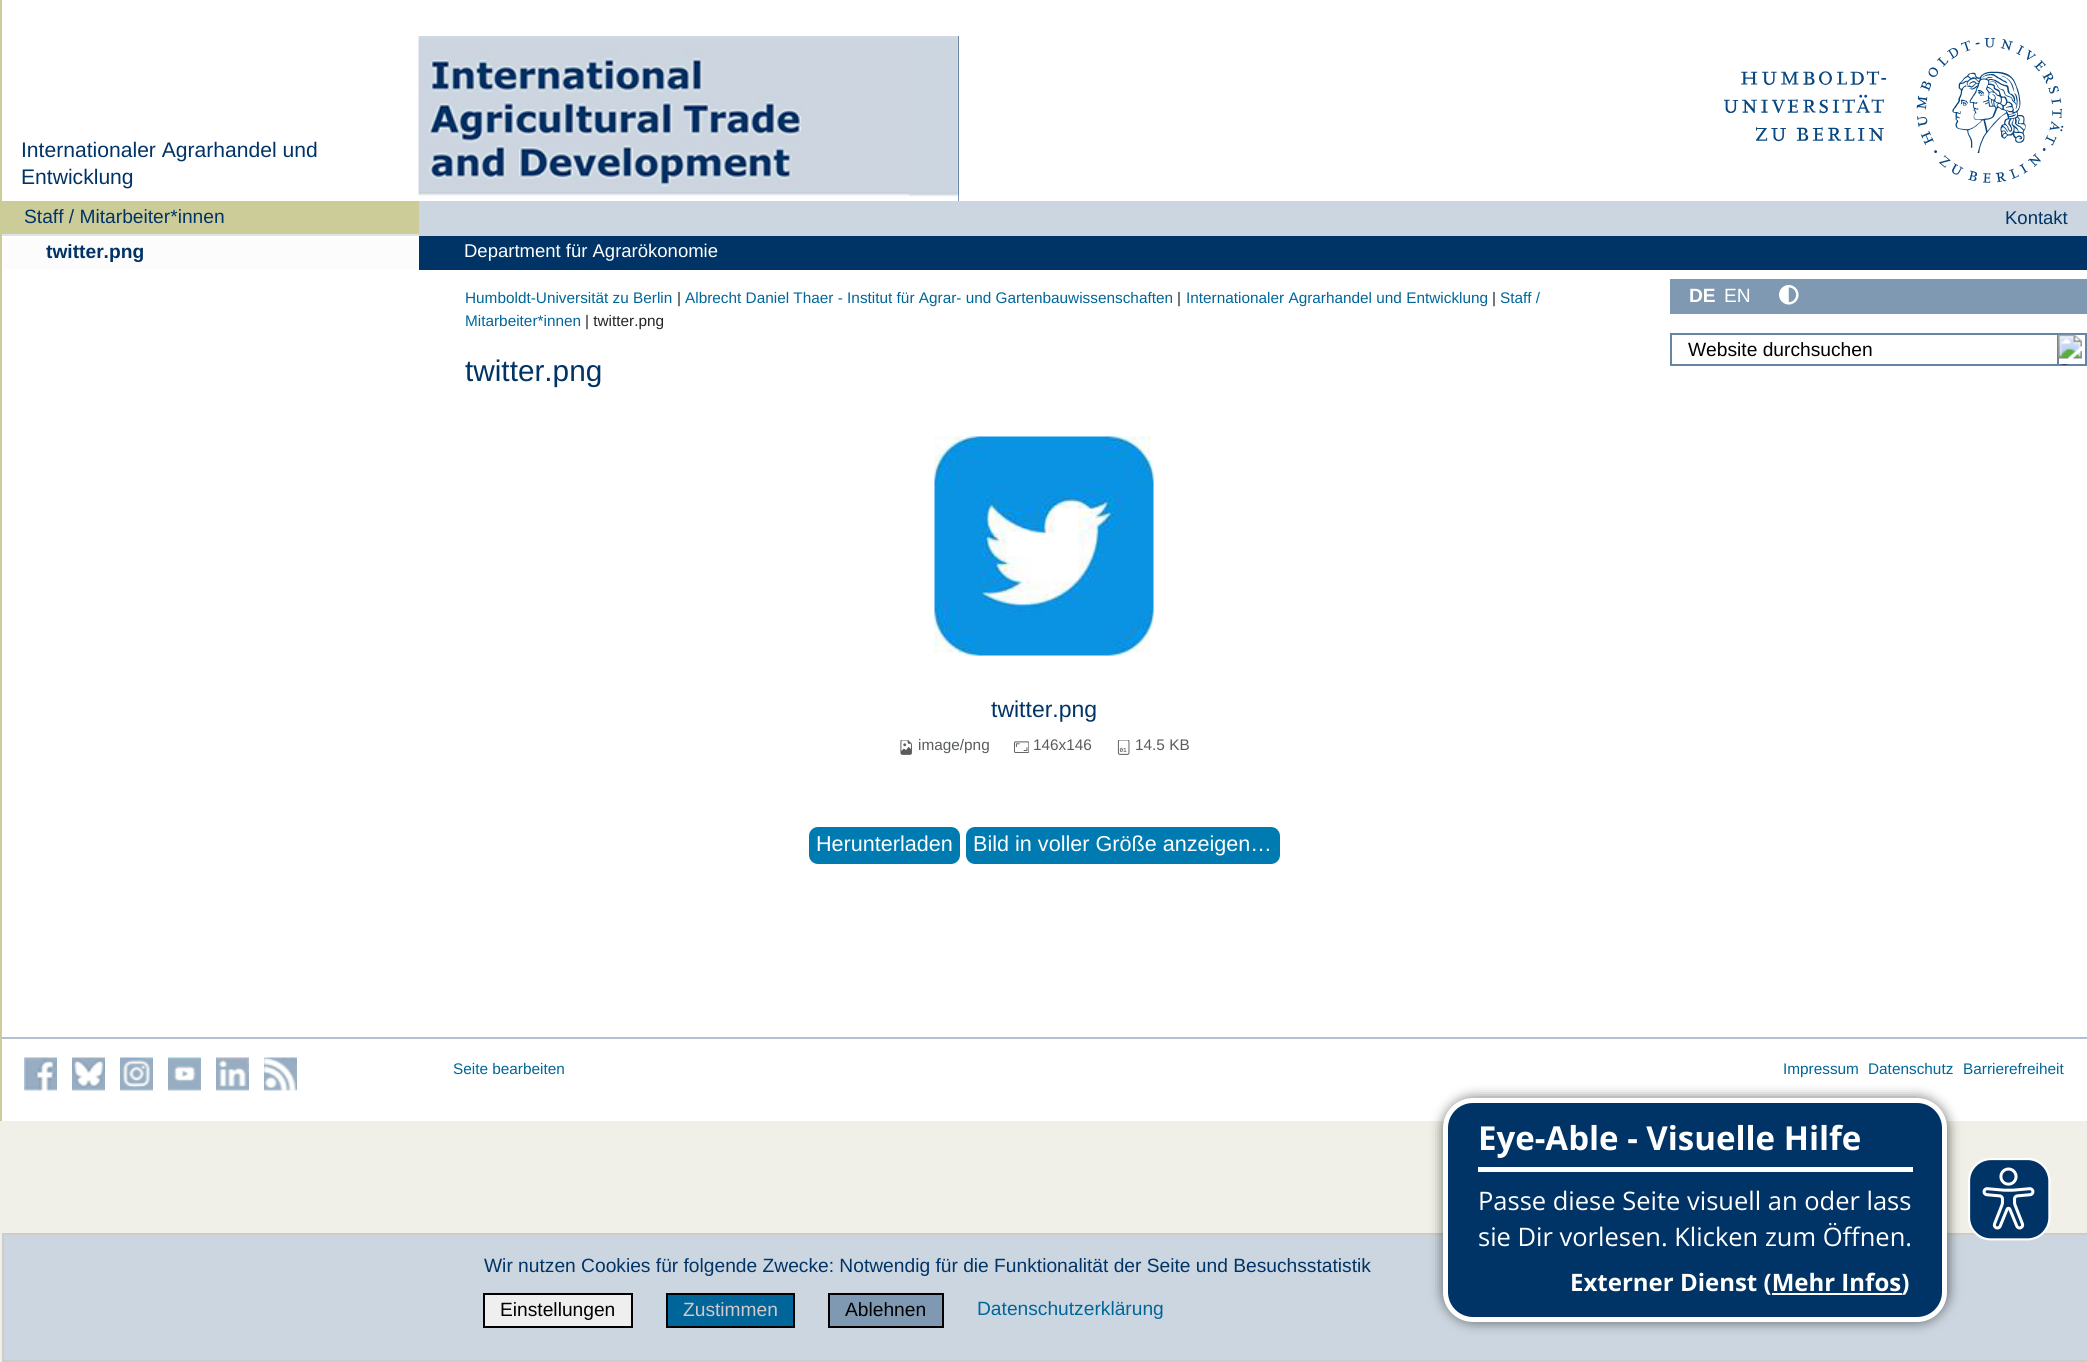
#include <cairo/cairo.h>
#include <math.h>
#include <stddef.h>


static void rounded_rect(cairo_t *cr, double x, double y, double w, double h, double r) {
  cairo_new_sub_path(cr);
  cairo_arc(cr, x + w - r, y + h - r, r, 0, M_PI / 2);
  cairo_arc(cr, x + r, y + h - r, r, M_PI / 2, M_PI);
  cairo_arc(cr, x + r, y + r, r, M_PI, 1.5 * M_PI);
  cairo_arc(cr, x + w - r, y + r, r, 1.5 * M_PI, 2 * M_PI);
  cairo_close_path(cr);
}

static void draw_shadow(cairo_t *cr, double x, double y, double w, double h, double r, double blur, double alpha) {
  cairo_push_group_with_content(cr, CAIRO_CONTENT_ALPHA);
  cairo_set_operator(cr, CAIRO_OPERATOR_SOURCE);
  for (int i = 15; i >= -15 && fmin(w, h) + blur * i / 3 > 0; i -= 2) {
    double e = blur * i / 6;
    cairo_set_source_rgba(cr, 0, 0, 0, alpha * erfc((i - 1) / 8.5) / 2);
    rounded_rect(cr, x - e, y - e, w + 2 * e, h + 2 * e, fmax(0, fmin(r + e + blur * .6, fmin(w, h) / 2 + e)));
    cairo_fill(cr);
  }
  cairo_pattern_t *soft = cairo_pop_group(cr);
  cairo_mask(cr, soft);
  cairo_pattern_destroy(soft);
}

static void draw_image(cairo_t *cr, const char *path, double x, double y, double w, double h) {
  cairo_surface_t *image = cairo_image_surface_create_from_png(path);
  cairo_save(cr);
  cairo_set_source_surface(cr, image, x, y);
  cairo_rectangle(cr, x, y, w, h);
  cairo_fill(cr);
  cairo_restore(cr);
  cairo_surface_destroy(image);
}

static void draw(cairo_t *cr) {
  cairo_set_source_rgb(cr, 240 / 255.0, 240 / 255.0, 232 / 255.0);
  cairo_paint(cr);
  cairo_set_source_rgb(cr, 1, 1, 1);
  cairo_rectangle(cr, 2, 0, 2085, 1121);
  cairo_fill(cr);
  cairo_set_source_rgb(cr, 0, 51 / 255.0, 102 / 255.0);
  cairo_rectangle(cr, 958, 36, 1, 165);
  cairo_fill(cr);
  draw_image(cr, "images/1.png", 418, 36, 541, 165);
  draw_image(cr, "images/2.png", 1724, 38, 340, 145);
  cairo_set_source_rgb(cr, 204 / 255.0, 204 / 255.0, 153 / 255.0);
  cairo_rectangle(cr, 0, 0, 2, 1121);
  cairo_fill(cr);
  cairo_rectangle(cr, 2, 201, 417, 33);
  cairo_fill(cr);
  cairo_set_source_rgb(cr, 222 / 255.0, 226 / 255.0, 230 / 255.0);
  cairo_rectangle(cr, 2, 234, 417, 2);
  cairo_fill(cr);
  cairo_set_source_rgb(cr, 252 / 255.0, 252 / 255.0, 253 / 255.0);
  cairo_rectangle(cr, 2, 238, 417, 31);
  cairo_fill(cr);
  cairo_set_source_rgb(cr, 204 / 255.0, 214 / 255.0, 224 / 255.0);
  cairo_rectangle(cr, 419, 201, 1668, 35);
  cairo_fill(cr);
  cairo_set_source_rgb(cr, 0, 51 / 255.0, 102 / 255.0);
  cairo_rectangle(cr, 419, 236, 1668, 34);
  cairo_fill(cr);
  draw_image(cr, "images/3.png", 934, 436, 220, 220);
  draw_image(cr, "images/4.png", 900, 740, 12, 15);
  draw_image(cr, "images/5.png", 1014, 741, 15, 12);
  draw_image(cr, "images/6.png", 1117, 740, 13, 15);
  cairo_set_source_rgb(cr, 0, 123 / 255.0, 177 / 255.0);
  rounded_rect(cr, 809, 827, 151, 37, 9);
  cairo_fill(cr);
  rounded_rect(cr, 966, 827, 314, 37, 9);
  cairo_fill(cr);
  cairo_set_source_rgb(cr, 128 / 255.0, 153 / 255.0, 178 / 255.0);
  cairo_rectangle(cr, 1670, 279, 417, 35);
  cairo_fill(cr);
  draw_image(cr, "images/7.png", 1779, 285, 20, 20);
  cairo_rectangle(cr, 1671, 334, 415, 31);
  cairo_set_source_rgb(cr, 102 / 255.0, 133 / 255.0, 163 / 255.0);
  cairo_stroke(cr);
  cairo_rectangle(cr, 2058, 334, 28, 31);
  cairo_stroke(cr);
  draw_image(cr, "images/8.png", 2058, 334, 24, 31);
  cairo_set_source_rgb(cr, 178 / 255.0, 193 / 255.0, 209 / 255.0);
  cairo_rectangle(cr, 2, 1037, 2085, 2);
  cairo_fill(cr);
  draw_image(cr, "images/9.png", 24, 1057, 33, 34);
  draw_image(cr, "images/10.png", 72, 1057, 33, 34);
  draw_image(cr, "images/11.png", 120, 1057, 33, 34);
  draw_image(cr, "images/12.png", 168, 1057, 33, 34);
  draw_image(cr, "images/13.png", 216, 1057, 33, 34);
  draw_image(cr, "images/14.png", 264, 1057, 33, 34);
  cairo_set_source_rgb(cr, 204 / 255.0, 214 / 255.0, 224 / 255.0);
  cairo_rectangle(cr, 3, 1234, 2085, 127);
  cairo_fill_preserve(cr);
  cairo_set_source_rgb(cr, 204 / 255.0, 204 / 255.0, 204 / 255.0);
  cairo_stroke(cr);
  cairo_set_source_rgb(cr, 239 / 255.0, 239 / 255.0, 239 / 255.0);
  cairo_rectangle(cr, 484, 1294, 148, 33);
  cairo_fill_preserve(cr);
  cairo_set_source_rgb(cr, 0, 0, 0);
  cairo_stroke(cr);
  cairo_set_source_rgb(cr, 0, 102 / 255.0, 153 / 255.0);
  cairo_rectangle(cr, 667, 1294, 127, 33);
  cairo_fill_preserve(cr);
  cairo_set_source_rgb(cr, 0, 0, 0);
  cairo_stroke(cr);
  cairo_set_source_rgb(cr, 128 / 255.0, 153 / 255.0, 178 / 255.0);
  cairo_rectangle(cr, 829, 1294, 114, 33);
  cairo_fill_preserve(cr);
  cairo_set_source_rgb(cr, 0, 0, 0);
  cairo_stroke(cr);
  cairo_set_source_rgb(cr, 0, 0, 0);
  draw_shadow(cr, 1442, 1097, 507, 226, 32, 6, 0.5);
  cairo_set_source_rgb(cr, 0, 51 / 255.0, 102 / 255.0);
  rounded_rect(cr, 1445.5, 1100.5, 499, 219, 27.5);
  cairo_fill_preserve(cr);
  cairo_set_source_rgb(cr, 1, 1, 1);
  cairo_set_line_width(cr, 5);
  cairo_stroke(cr);
  cairo_rectangle(cr, 1478, 1167, 435, 5);
  cairo_fill(cr);
  cairo_rectangle(cr, 1772, 1293, 130, 2);
  cairo_fill(cr);
  draw_image(cr, "images/15.png", 1968, 1158, 83, 83);
  cairo_select_font_face(cr, "Liberation Sans", CAIRO_FONT_SLANT_NORMAL, CAIRO_FONT_WEIGHT_NORMAL);
  cairo_set_font_size(cr, 21.1);
  cairo_set_source_rgb(cr, 0, 51 / 255.0, 102 / 255.0);
  cairo_move_to(cr, 21, 157);
  cairo_show_text(cr, "Internationaler Agrarhandel und");
  cairo_move_to(cr, 21, 184);
  cairo_show_text(cr, "Entwicklung");
  cairo_set_font_size(cr, 19.2);
  cairo_move_to(cr, 24, 223);
  cairo_show_text(cr, "Staff / Mitarbeiter*innen");
  cairo_select_font_face(cr, "Liberation Sans", CAIRO_FONT_SLANT_NORMAL, CAIRO_FONT_WEIGHT_BOLD);
  cairo_move_to(cr, 46, 258);
  cairo_show_text(cr, "twitter.png");
  cairo_select_font_face(cr, "Liberation Sans", CAIRO_FONT_SLANT_NORMAL, CAIRO_FONT_WEIGHT_NORMAL);
  cairo_set_font_size(cr, 18.5);
  cairo_move_to(cr, 2005, 224);
  cairo_show_text(cr, "Kontakt");
  cairo_set_source_rgb(cr, 1, 1, 1);
  cairo_move_to(cr, 464, 257);
  cairo_show_text(cr, "Department für Agrarökonomie");
  cairo_set_font_size(cr, 15.35);
  cairo_set_source_rgb(cr, 0, 102 / 255.0, 153 / 255.0);
  cairo_move_to(cr, 465, 303);
  cairo_show_text(cr, "Humboldt-Universität zu Berlin");
  cairo_set_source_rgb(cr, 33 / 255.0, 37 / 255.0, 41 / 255.0);
  cairo_move_to(cr, 677, 303);
  cairo_show_text(cr, "|");
  cairo_set_source_rgb(cr, 0, 102 / 255.0, 153 / 255.0);
  cairo_move_to(cr, 685, 303);
  cairo_show_text(cr, "Albrecht Daniel Thaer - Institut für Agrar- und Gartenbauwissenschaften");
  cairo_set_source_rgb(cr, 33 / 255.0, 37 / 255.0, 41 / 255.0);
  cairo_move_to(cr, 1177, 303);
  cairo_show_text(cr, "|");
  cairo_set_source_rgb(cr, 0, 102 / 255.0, 153 / 255.0);
  cairo_move_to(cr, 1186, 303);
  cairo_show_text(cr, "Internationaler Agrarhandel und Entwicklung");
  cairo_set_source_rgb(cr, 33 / 255.0, 37 / 255.0, 41 / 255.0);
  cairo_move_to(cr, 1492, 303);
  cairo_show_text(cr, "|");
  cairo_set_source_rgb(cr, 0, 102 / 255.0, 153 / 255.0);
  cairo_move_to(cr, 1500, 303);
  cairo_show_text(cr, "Staff /");
  cairo_move_to(cr, 465, 326);
  cairo_show_text(cr, "Mitarbeiter*innen");
  cairo_set_source_rgb(cr, 33 / 255.0, 37 / 255.0, 41 / 255.0);
  cairo_move_to(cr, 585, 326);
  cairo_show_text(cr, "| twitter.png");
  cairo_set_font_size(cr, 29.75);
  cairo_set_source_rgb(cr, 0, 51 / 255.0, 102 / 255.0);
  cairo_move_to(cr, 465, 381);
  cairo_show_text(cr, "twitter.png");
  cairo_set_font_size(cr, 23);
  cairo_move_to(cr, 991, 717);
  cairo_show_text(cr, "twitter.png");
  cairo_set_font_size(cr, 15.35);
  cairo_set_source_rgb(cr, 89 / 255.0, 92 / 255.0, 95 / 255.0);
  cairo_move_to(cr, 918, 750);
  cairo_show_text(cr, "image/png");
  cairo_move_to(cr, 1033, 750);
  cairo_show_text(cr, "146x146");
  cairo_move_to(cr, 1135, 750);
  cairo_show_text(cr, "14.5 KB");
  cairo_set_font_size(cr, 21.6);
  cairo_set_source_rgb(cr, 1, 1, 1);
  cairo_move_to(cr, 816, 851);
  cairo_show_text(cr, "Herunterladen");
  cairo_move_to(cr, 973, 851);
  cairo_show_text(cr, "Bild in voller Größe anzeigen…");
  cairo_select_font_face(cr, "Liberation Sans", CAIRO_FONT_SLANT_NORMAL, CAIRO_FONT_WEIGHT_BOLD);
  cairo_set_font_size(cr, 19.2);
  cairo_move_to(cr, 1689, 302);
  cairo_show_text(cr, "DE");
  cairo_select_font_face(cr, "Liberation Sans", CAIRO_FONT_SLANT_NORMAL, CAIRO_FONT_WEIGHT_NORMAL);
  cairo_move_to(cr, 1724, 302);
  cairo_show_text(cr, "EN");
  cairo_set_source_rgb(cr, 0, 0, 0);
  cairo_move_to(cr, 1688, 356);
  cairo_show_text(cr, "Website durchsuchen");
  cairo_set_font_size(cr, 15.35);
  cairo_set_source_rgb(cr, 0, 102 / 255.0, 153 / 255.0);
  cairo_move_to(cr, 453, 1074);
  cairo_show_text(cr, "Seite bearbeiten");
  cairo_move_to(cr, 1783, 1074);
  cairo_show_text(cr, "Impressum");
  cairo_move_to(cr, 1868, 1074);
  cairo_show_text(cr, "Datenschutz");
  cairo_move_to(cr, 1963, 1074);
  cairo_show_text(cr, "Barrierefreiheit");
  cairo_set_font_size(cr, 19.2);
  cairo_set_source_rgb(cr, 0, 51 / 255.0, 102 / 255.0);
  cairo_move_to(cr, 484, 1272);
  cairo_show_text(cr, "Wir nutzen Cookies für folgende Zwecke: Notwendig für die Funktionalität der Seite und Besuchsstatistik");
  cairo_set_source_rgb(cr, 0, 0, 0);
  cairo_move_to(cr, 500, 1316);
  cairo_show_text(cr, "Einstellungen");
  cairo_set_source_rgb(cr, 213 / 255.0, 199 / 255.0, 199 / 255.0);
  cairo_move_to(cr, 683, 1316);
  cairo_show_text(cr, "Zustimmen");
  cairo_set_source_rgb(cr, 0, 0, 0);
  cairo_move_to(cr, 845, 1316);
  cairo_show_text(cr, "Ablehnen");
  cairo_set_source_rgb(cr, 0, 102 / 255.0, 153 / 255.0);
  cairo_move_to(cr, 977, 1315);
  cairo_show_text(cr, "Datenschutzerklärung");
  cairo_select_font_face(cr, "Open Sans", CAIRO_FONT_SLANT_NORMAL, CAIRO_FONT_WEIGHT_BOLD);
  cairo_set_font_size(cr, 33);
  cairo_set_source_rgb(cr, 1, 1, 1);
  cairo_move_to(cr, 1478, 1150);
  cairo_show_text(cr, "Eye-Able - Visuelle Hilfe");
  cairo_select_font_face(cr, "Open Sans", CAIRO_FONT_SLANT_NORMAL, CAIRO_FONT_WEIGHT_NORMAL);
  cairo_set_font_size(cr, 25.5);
  cairo_move_to(cr, 1478, 1210);
  cairo_show_text(cr, "Passe diese Seite visuell an oder lass");
  cairo_move_to(cr, 1478, 1246);
  cairo_show_text(cr, "sie Dir vorlesen. Klicken zum Öffnen.");
  cairo_select_font_face(cr, "Open Sans", CAIRO_FONT_SLANT_NORMAL, CAIRO_FONT_WEIGHT_BOLD);
  cairo_set_font_size(cr, 24);
  cairo_move_to(cr, 1570, 1291);
  cairo_show_text(cr, "Externer Dienst (Mehr Infos)");
}

int main(void) {
  cairo_surface_t *surface = cairo_image_surface_create(CAIRO_FORMAT_RGB24, 2087, 1362);
  cairo_t *cr = cairo_create(surface);
  cairo_font_options_t *options = cairo_font_options_create();
  cairo_font_options_set_hint_metrics(options, CAIRO_HINT_METRICS_OFF);
  cairo_font_options_set_hint_style(options, CAIRO_HINT_STYLE_NONE);
  cairo_set_font_options(cr, options);
  cairo_set_miter_limit(cr, 4);
  draw(cr);
  cairo_surface_write_to_png(surface, "out.png");
  cairo_font_options_destroy(options);
  cairo_destroy(cr);
  cairo_surface_destroy(surface);
  return 0;
}
